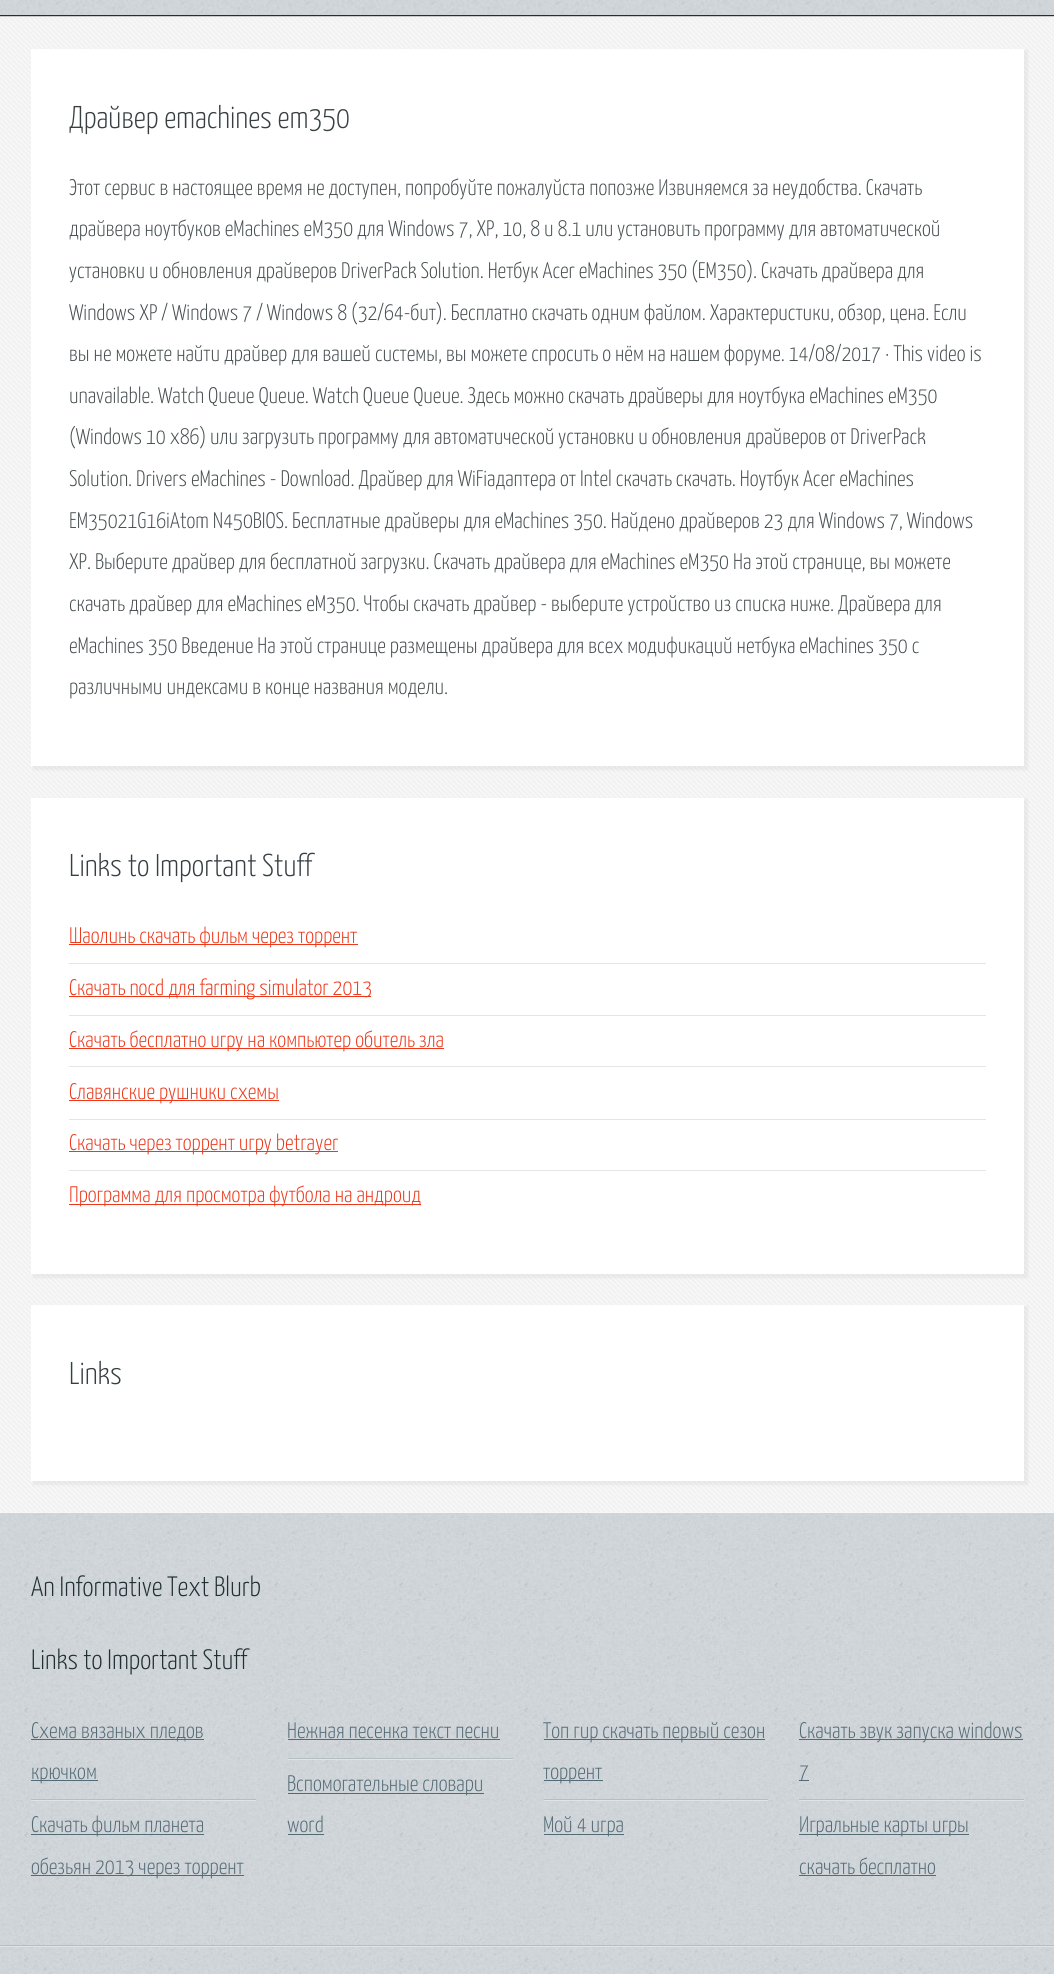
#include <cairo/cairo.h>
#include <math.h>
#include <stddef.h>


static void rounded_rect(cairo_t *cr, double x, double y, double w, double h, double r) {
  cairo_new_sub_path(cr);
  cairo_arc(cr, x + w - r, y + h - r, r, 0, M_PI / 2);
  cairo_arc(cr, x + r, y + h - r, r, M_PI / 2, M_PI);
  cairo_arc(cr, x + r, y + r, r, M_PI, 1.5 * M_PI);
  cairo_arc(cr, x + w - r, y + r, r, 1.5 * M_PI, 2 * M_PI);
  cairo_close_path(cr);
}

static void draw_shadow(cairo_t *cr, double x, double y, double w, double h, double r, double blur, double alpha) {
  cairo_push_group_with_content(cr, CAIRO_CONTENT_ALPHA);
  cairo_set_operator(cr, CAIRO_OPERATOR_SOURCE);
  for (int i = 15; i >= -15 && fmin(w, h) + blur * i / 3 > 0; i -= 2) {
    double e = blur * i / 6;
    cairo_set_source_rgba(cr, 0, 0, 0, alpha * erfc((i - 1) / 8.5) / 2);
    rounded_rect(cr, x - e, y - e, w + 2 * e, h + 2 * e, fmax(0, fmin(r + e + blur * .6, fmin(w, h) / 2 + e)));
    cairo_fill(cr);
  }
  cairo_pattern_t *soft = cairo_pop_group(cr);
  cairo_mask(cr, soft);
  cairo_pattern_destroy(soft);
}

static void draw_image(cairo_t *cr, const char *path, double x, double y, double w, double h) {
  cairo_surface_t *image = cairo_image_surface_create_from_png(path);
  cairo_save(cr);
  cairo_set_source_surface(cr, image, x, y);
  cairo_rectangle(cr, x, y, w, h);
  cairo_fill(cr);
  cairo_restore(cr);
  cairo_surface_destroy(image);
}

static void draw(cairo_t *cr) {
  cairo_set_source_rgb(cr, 1, 1, 1);
  cairo_paint(cr);
  draw_image(cr, "images/1.png", 0, 0, 1054, 1974);
  cairo_set_source_rgb(cr, 1, 1, 1);
  cairo_rectangle(cr, 0, 16, 1054, 1);
  cairo_fill(cr);
  draw_image(cr, "images/2.png", 0, 16, 1054, 1);
  cairo_set_source_rgb(cr, 39 / 255.0, 45 / 255.0, 48 / 255.0);
  cairo_rectangle(cr, 0, 15, 1054, 1);
  cairo_fill(cr);
  cairo_set_source_rgb(cr, 247 / 255.0, 247 / 255.0, 247 / 255.0);
  cairo_rectangle(cr, 0, 17, 1054, 1496);
  cairo_fill(cr);
  draw_image(cr, "images/3.png", 0, 17, 1054, 1495);
  cairo_set_source_rgb(cr, 128 / 255.0, 128 / 255.0, 128 / 255.0);
  draw_shadow(cr, 33, 50, 995, 720, 0, 1, 0.1);
  cairo_set_source_rgb(cr, 1, 1, 1);
  cairo_rectangle(cr, 31, 49, 993, 717);
  cairo_fill(cr);
  cairo_set_source_rgb(cr, 128 / 255.0, 128 / 255.0, 128 / 255.0);
  draw_shadow(cr, 33, 799, 995, 479, 0, 1, 0.1);
  cairo_set_source_rgb(cr, 1, 1, 1);
  cairo_rectangle(cr, 31, 798, 993, 476);
  cairo_fill(cr);
  cairo_set_source_rgb(cr, 226 / 255.0, 230 / 255.0, 232 / 255.0);
  cairo_rectangle(cr, 69, 963, 917, 1);
  cairo_fill(cr);
  cairo_set_source_rgb(cr, 237 / 255.0, 57 / 255.0, 27 / 255.0);
  cairo_rectangle(cr, 69, 944, 289, 1);
  cairo_fill(cr);
  cairo_set_source_rgb(cr, 226 / 255.0, 230 / 255.0, 232 / 255.0);
  cairo_rectangle(cr, 69, 1015, 917, 1);
  cairo_fill(cr);
  cairo_set_source_rgb(cr, 237 / 255.0, 57 / 255.0, 27 / 255.0);
  cairo_rectangle(cr, 69, 996, 302, 1);
  cairo_fill(cr);
  cairo_set_source_rgb(cr, 226 / 255.0, 230 / 255.0, 232 / 255.0);
  cairo_rectangle(cr, 69, 1066, 917, 1);
  cairo_fill(cr);
  cairo_set_source_rgb(cr, 237 / 255.0, 57 / 255.0, 27 / 255.0);
  cairo_rectangle(cr, 69, 1048, 375, 1);
  cairo_fill(cr);
  cairo_set_source_rgb(cr, 226 / 255.0, 230 / 255.0, 232 / 255.0);
  cairo_rectangle(cr, 69, 1119, 917, 1);
  cairo_fill(cr);
  cairo_set_source_rgb(cr, 237 / 255.0, 57 / 255.0, 27 / 255.0);
  cairo_rectangle(cr, 69, 1100, 210, 1);
  cairo_fill(cr);
  cairo_set_source_rgb(cr, 226 / 255.0, 230 / 255.0, 232 / 255.0);
  cairo_rectangle(cr, 69, 1170, 917, 1);
  cairo_fill(cr);
  cairo_set_source_rgb(cr, 237 / 255.0, 57 / 255.0, 27 / 255.0);
  cairo_rectangle(cr, 69, 1151, 269, 1);
  cairo_fill(cr);
  cairo_rectangle(cr, 69, 1204, 352, 1);
  cairo_fill(cr);
  cairo_set_source_rgb(cr, 128 / 255.0, 128 / 255.0, 128 / 255.0);
  draw_shadow(cr, 33, 1306, 995, 179, 0, 1, 0.1);
  cairo_set_source_rgb(cr, 1, 1, 1);
  cairo_rectangle(cr, 31, 1305, 993, 176);
  cairo_fill(cr);
  cairo_set_source_rgb(cr, 181 / 255.0, 190 / 255.0, 195 / 255.0);
  cairo_rectangle(cr, 31, 1799, 225, 1);
  cairo_fill(cr);
  cairo_set_source_rgb(cr, 84 / 255.0, 107 / 255.0, 118 / 255.0);
  cairo_rectangle(cr, 31, 1739, 173, 1);
  cairo_fill(cr);
  cairo_rectangle(cr, 31, 1780, 67, 1);
  cairo_fill(cr);
  cairo_set_source_rgb(cr, 224 / 255.0, 228 / 255.0, 230 / 255.0);
  cairo_rectangle(cr, 31, 1800, 225, 1);
  cairo_fill(cr);
  cairo_set_source_rgb(cr, 84 / 255.0, 107 / 255.0, 118 / 255.0);
  cairo_rectangle(cr, 31, 1834, 173, 1);
  cairo_fill(cr);
  cairo_rectangle(cr, 31, 1875, 213, 1);
  cairo_fill(cr);
  cairo_set_source_rgb(cr, 181 / 255.0, 190 / 255.0, 195 / 255.0);
  cairo_rectangle(cr, 288, 1758, 225, 1);
  cairo_fill(cr);
  cairo_set_source_rgb(cr, 84 / 255.0, 107 / 255.0, 118 / 255.0);
  cairo_rectangle(cr, 288, 1739, 212, 1);
  cairo_fill(cr);
  cairo_set_source_rgb(cr, 224 / 255.0, 228 / 255.0, 230 / 255.0);
  cairo_rectangle(cr, 288, 1759, 225, 1);
  cairo_fill(cr);
  cairo_set_source_rgb(cr, 84 / 255.0, 107 / 255.0, 118 / 255.0);
  cairo_rectangle(cr, 288, 1793, 196, 1);
  cairo_fill(cr);
  cairo_rectangle(cr, 288, 1834, 36, 1);
  cairo_fill(cr);
  cairo_set_source_rgb(cr, 181 / 255.0, 190 / 255.0, 195 / 255.0);
  cairo_rectangle(cr, 544, 1799, 224, 1);
  cairo_fill(cr);
  cairo_set_source_rgb(cr, 84 / 255.0, 107 / 255.0, 118 / 255.0);
  cairo_rectangle(cr, 544, 1739, 221, 1);
  cairo_fill(cr);
  cairo_rectangle(cr, 544, 1780, 59, 1);
  cairo_fill(cr);
  cairo_set_source_rgb(cr, 224 / 255.0, 228 / 255.0, 230 / 255.0);
  cairo_rectangle(cr, 544, 1800, 224, 1);
  cairo_fill(cr);
  cairo_set_source_rgb(cr, 84 / 255.0, 107 / 255.0, 118 / 255.0);
  cairo_rectangle(cr, 544, 1834, 80, 1);
  cairo_fill(cr);
  cairo_set_source_rgb(cr, 181 / 255.0, 190 / 255.0, 195 / 255.0);
  cairo_rectangle(cr, 799, 1799, 225, 1);
  cairo_fill(cr);
  cairo_set_source_rgb(cr, 84 / 255.0, 107 / 255.0, 118 / 255.0);
  cairo_rectangle(cr, 799, 1739, 224, 1);
  cairo_fill(cr);
  cairo_rectangle(cr, 799, 1780, 10, 1);
  cairo_fill(cr);
  cairo_set_source_rgb(cr, 224 / 255.0, 228 / 255.0, 230 / 255.0);
  cairo_rectangle(cr, 799, 1800, 225, 1);
  cairo_fill(cr);
  cairo_set_source_rgb(cr, 84 / 255.0, 107 / 255.0, 118 / 255.0);
  cairo_rectangle(cr, 799, 1834, 170, 1);
  cairo_fill(cr);
  cairo_rectangle(cr, 799, 1875, 137, 1);
  cairo_fill(cr);
  cairo_set_source_rgb(cr, 224 / 255.0, 228 / 255.0, 231 / 255.0);
  cairo_rectangle(cr, 0, 1946, 1054, 1);
  cairo_fill(cr);
  cairo_set_source_rgb(cr, 181 / 255.0, 190 / 255.0, 195 / 255.0);
  cairo_rectangle(cr, 0, 1945, 1054, 1);
  cairo_fill(cr);
  cairo_select_font_face(cr, "Yanone Kaffeesatz Light", CAIRO_FONT_SLANT_NORMAL, CAIRO_FONT_WEIGHT_NORMAL);
  cairo_set_font_size(cr, 31.5);
  cairo_set_source_rgb(cr, 55 / 255.0, 63 / 255.0, 66 / 255.0);
  cairo_move_to(cr, 69, 128);
  cairo_show_text(cr, "Драйвер emachines em350");
  cairo_set_font_size(cr, 22.5);
  cairo_set_source_rgb(cr, 71 / 255.0, 79 / 255.0, 81 / 255.0);
  cairo_move_to(cr, 69, 195);
  cairo_show_text(cr, "Этот сервис в настоящее время не доступен, попробуйте пожалуйста попозже Извиняемся за неудобства. Скачать");
  cairo_move_to(cr, 69, 236);
  cairo_show_text(cr, "драйвера ноутбуков eMachines eM350 для Windows 7, XP, 10, 8 и 8.1 или установить программу для автоматической");
  cairo_move_to(cr, 69, 278);
  cairo_show_text(cr, "установки и обновления драйверов DriverPack Solution. Нетбук Acer eMachines 350 (EM350). Скачать драйвера для");
  cairo_move_to(cr, 69, 320);
  cairo_show_text(cr, "Windows XP / Windows 7 / Windows 8 (32/64-бит). Бесплатно скачать одним файлом. Характеристики, обзор, цена. Если");
  cairo_move_to(cr, 69, 361);
  cairo_show_text(cr, "вы не можете найти драйвер для вашей системы, вы можете спросить о нём на нашем форуме. 14/08/2017 · This video is");
  cairo_move_to(cr, 69, 403);
  cairo_show_text(cr, "unavailable. Watch Queue Queue. Watch Queue Queue. Здесь можно скачать драйверы для ноутбука eMachines eM350");
  cairo_move_to(cr, 69, 444);
  cairo_show_text(cr, "(Windows 10 x86) или загрузить программу для автоматической установки и обновления драйверов от DriverPack");
  cairo_move_to(cr, 69, 486);
  cairo_show_text(cr, "Solution. Drivers eMachines - Download. Драйвер для WiFiадаптера от Intel скачать скачать. Ноутбук Acer eMachines");
  cairo_move_to(cr, 69, 528);
  cairo_show_text(cr, "EM35021G16iAtom N450BIOS. Бесплатные драйверы для eMachines 350. Найдено драйверов 23 для Windows 7, Windows");
  cairo_move_to(cr, 69, 569);
  cairo_show_text(cr, "XP. Выберите драйвер для бесплатной загрузки. Скачать драйвера для eMachines eM350 На этой странице, вы можете");
  cairo_move_to(cr, 69, 611);
  cairo_show_text(cr, "скачать драйвер для eMachines eM350. Чтобы скачать драйвер - выберите устройство из списка ниже. Драйвера для");
  cairo_move_to(cr, 69, 653);
  cairo_show_text(cr, "eMachines 350 Введение На этой странице размещены драйвера для всех модификаций нетбука eMachines 350 с");
  cairo_move_to(cr, 69, 694);
  cairo_show_text(cr, "различными индексами в конце названия модели.");
  cairo_set_font_size(cr, 31.5);
  cairo_set_source_rgb(cr, 55 / 255.0, 63 / 255.0, 66 / 255.0);
  cairo_move_to(cr, 69, 876);
  cairo_show_text(cr, "Links to Important Stuff");
  cairo_set_font_size(cr, 22.5);
  cairo_set_source_rgb(cr, 237 / 255.0, 57 / 255.0, 27 / 255.0);
  cairo_move_to(cr, 69, 943);
  cairo_show_text(cr, "Шаолинь скачать фильм через торрент");
  cairo_move_to(cr, 69, 995);
  cairo_show_text(cr, "Скачать nocd для farming simulator 2013");
  cairo_move_to(cr, 69, 1047);
  cairo_show_text(cr, "Скачать бесплатно игру на компьютер обитель зла");
  cairo_move_to(cr, 69, 1099);
  cairo_show_text(cr, "Славянские рушники схемы");
  cairo_move_to(cr, 69, 1150);
  cairo_show_text(cr, "Скачать через торрент игру betrayer");
  cairo_move_to(cr, 69, 1202);
  cairo_show_text(cr, "Программа для просмотра футбола на андроид");
  cairo_set_font_size(cr, 31.5);
  cairo_set_source_rgb(cr, 55 / 255.0, 63 / 255.0, 66 / 255.0);
  cairo_move_to(cr, 69, 1384);
  cairo_show_text(cr, "Links");
  cairo_set_font_size(cr, 28);
  cairo_set_source_rgb(cr, 33 / 255.0, 47 / 255.0, 53 / 255.0);
  cairo_move_to(cr, 31, 1596);
  cairo_show_text(cr, "An Informative Text Blurb");
  cairo_move_to(cr, 31, 1669);
  cairo_show_text(cr, "Links to Important Stuff");
  cairo_set_font_size(cr, 22.5);
  cairo_set_source_rgb(cr, 84 / 255.0, 107 / 255.0, 118 / 255.0);
  cairo_move_to(cr, 31, 1738);
  cairo_show_text(cr, "Схема вязаных пледов");
  cairo_move_to(cr, 31, 1779);
  cairo_show_text(cr, "крючком");
  cairo_move_to(cr, 31, 1832);
  cairo_show_text(cr, "Скачать фильм планета");
  cairo_move_to(cr, 31, 1874);
  cairo_show_text(cr, "обезьян 2013 через торрент");
  cairo_move_to(cr, 287, 1738);
  cairo_show_text(cr, "Нежная песенка текст песни");
  cairo_move_to(cr, 287, 1791);
  cairo_show_text(cr, "Вспомогательные словари");
  cairo_move_to(cr, 287, 1832);
  cairo_show_text(cr, "word");
  cairo_move_to(cr, 543, 1738);
  cairo_show_text(cr, "Топ гир скачать первый сезон");
  cairo_move_to(cr, 543, 1779);
  cairo_show_text(cr, "торрент");
  cairo_move_to(cr, 543, 1832);
  cairo_show_text(cr, "Мой 4 игра");
  cairo_move_to(cr, 799, 1738);
  cairo_show_text(cr, "Скачать звук запуска windows");
  cairo_move_to(cr, 799, 1779);
  cairo_show_text(cr, "7");
  cairo_move_to(cr, 799, 1832);
  cairo_show_text(cr, "Игральные карты игры");
  cairo_move_to(cr, 799, 1874);
  cairo_show_text(cr, "скачать бесплатно");
}

int main(void) {
  cairo_surface_t *surface = cairo_image_surface_create(CAIRO_FORMAT_RGB24, 1054, 1974);
  cairo_t *cr = cairo_create(surface);
  cairo_font_options_t *options = cairo_font_options_create();
  cairo_font_options_set_hint_metrics(options, CAIRO_HINT_METRICS_OFF);
  cairo_font_options_set_hint_style(options, CAIRO_HINT_STYLE_NONE);
  cairo_set_font_options(cr, options);
  cairo_set_miter_limit(cr, 4);
  draw(cr);
  cairo_surface_write_to_png(surface, "out.png");
  cairo_font_options_destroy(options);
  cairo_destroy(cr);
  cairo_surface_destroy(surface);
  return 0;
}
